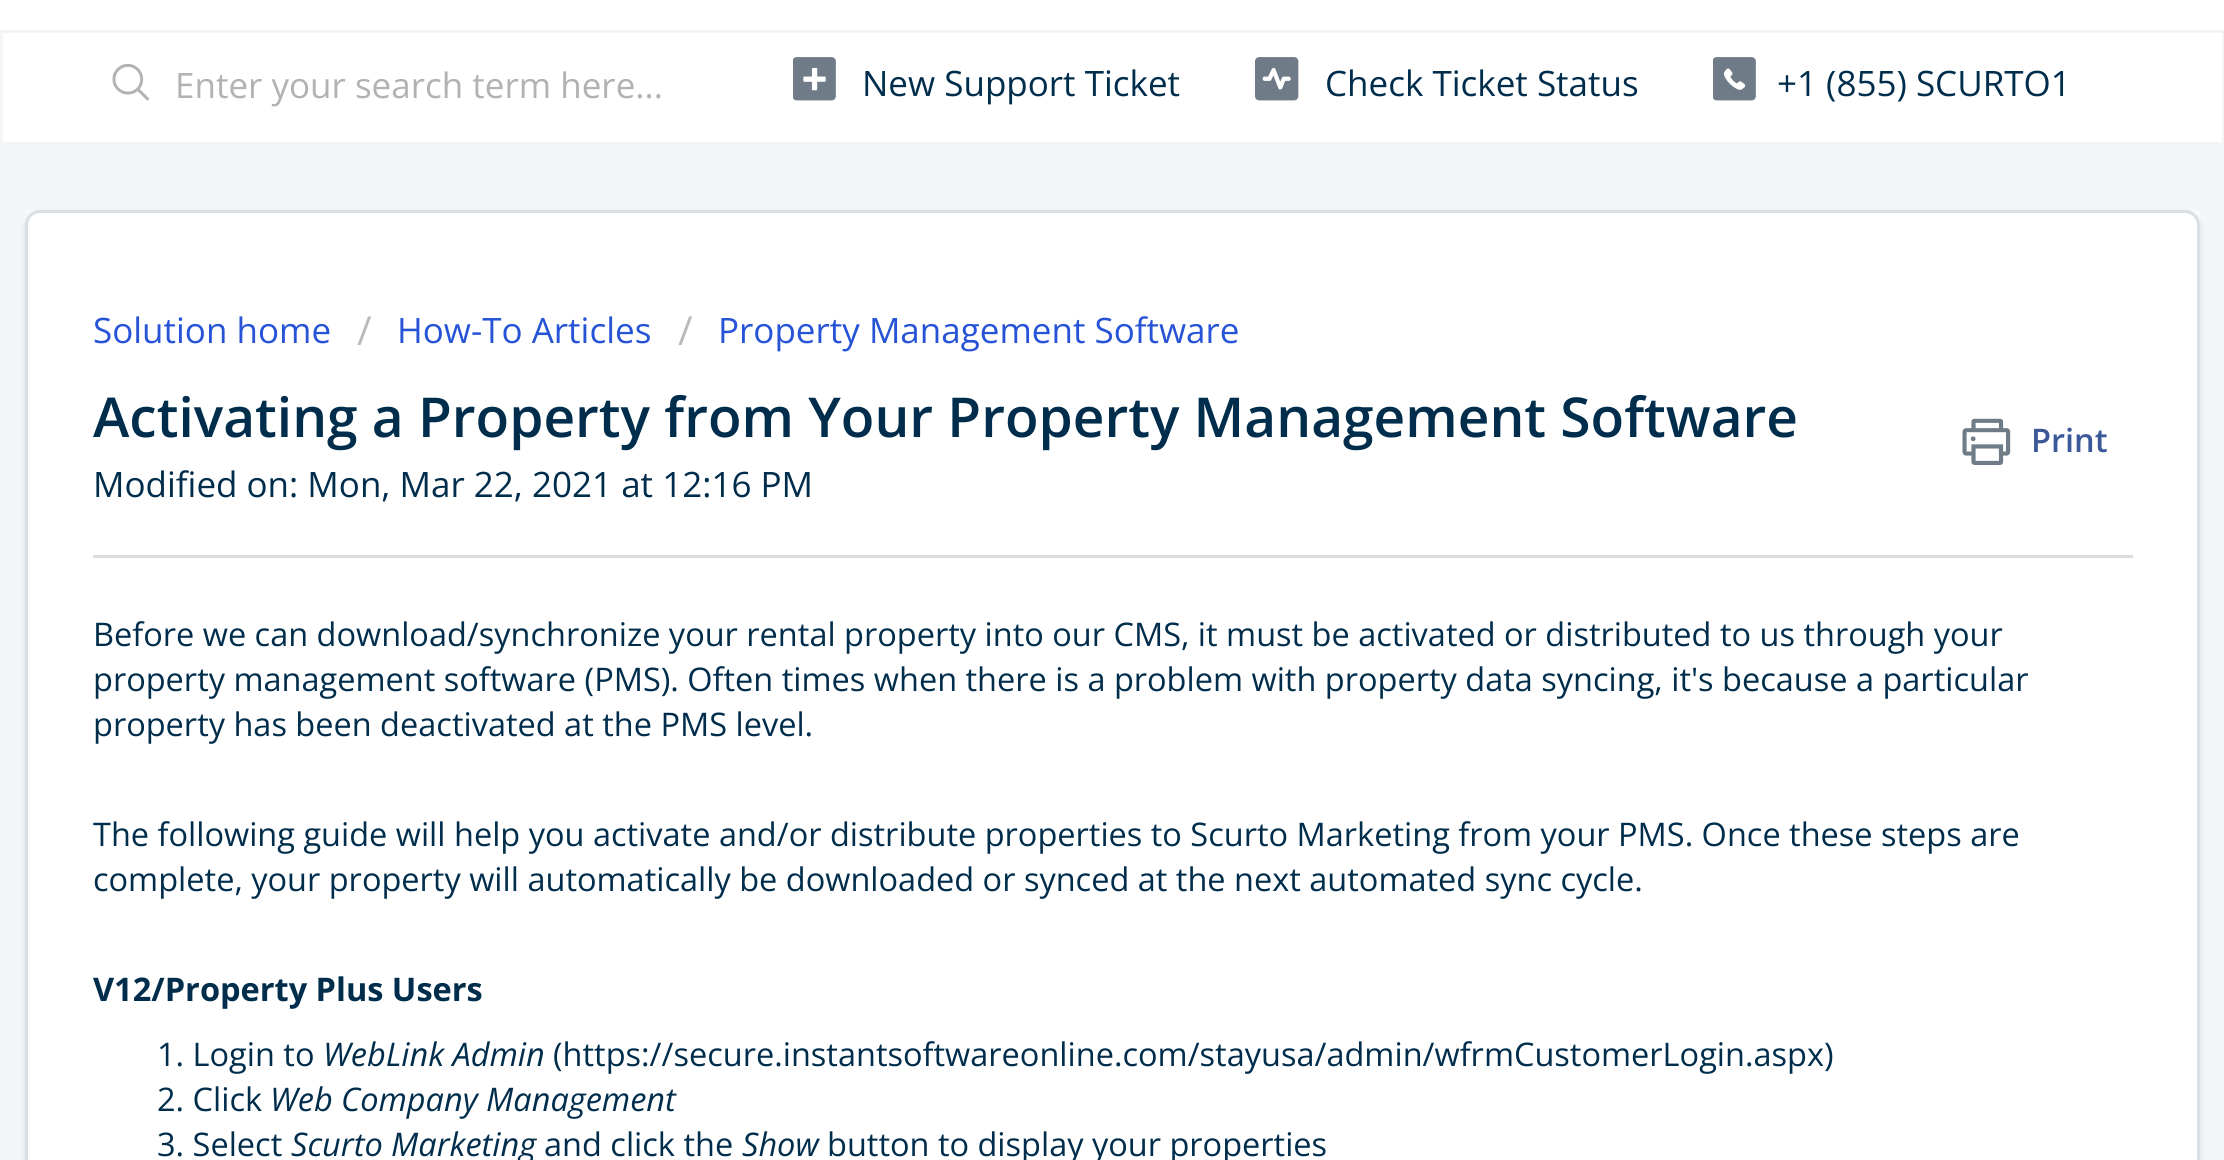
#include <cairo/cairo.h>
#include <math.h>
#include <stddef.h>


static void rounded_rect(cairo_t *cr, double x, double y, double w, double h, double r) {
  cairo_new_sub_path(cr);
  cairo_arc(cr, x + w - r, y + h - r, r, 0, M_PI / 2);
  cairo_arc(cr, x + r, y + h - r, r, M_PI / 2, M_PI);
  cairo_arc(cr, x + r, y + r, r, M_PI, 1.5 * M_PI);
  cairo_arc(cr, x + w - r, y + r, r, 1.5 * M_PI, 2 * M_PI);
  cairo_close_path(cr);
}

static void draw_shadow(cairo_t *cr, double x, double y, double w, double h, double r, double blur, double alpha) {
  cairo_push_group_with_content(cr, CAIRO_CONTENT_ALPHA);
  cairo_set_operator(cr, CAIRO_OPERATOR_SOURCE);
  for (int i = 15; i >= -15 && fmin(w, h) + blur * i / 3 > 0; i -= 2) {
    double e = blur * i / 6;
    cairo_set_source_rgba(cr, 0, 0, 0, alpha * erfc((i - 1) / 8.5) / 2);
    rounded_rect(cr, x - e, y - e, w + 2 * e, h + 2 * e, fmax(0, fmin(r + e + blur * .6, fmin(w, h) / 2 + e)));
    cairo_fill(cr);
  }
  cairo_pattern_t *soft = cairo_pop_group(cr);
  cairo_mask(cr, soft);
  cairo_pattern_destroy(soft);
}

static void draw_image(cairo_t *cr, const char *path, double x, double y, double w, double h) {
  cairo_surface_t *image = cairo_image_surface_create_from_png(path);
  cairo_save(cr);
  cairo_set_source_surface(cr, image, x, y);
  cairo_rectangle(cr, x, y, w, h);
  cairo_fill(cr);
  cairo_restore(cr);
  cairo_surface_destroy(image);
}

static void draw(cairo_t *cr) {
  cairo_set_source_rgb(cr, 243 / 255.0, 245 / 255.0, 247 / 255.0);
  cairo_paint(cr);
  cairo_set_source_rgb(cr, 1, 1, 1);
  cairo_rectangle(cr, 0, 0, 2224, 30);
  cairo_fill(cr);
  cairo_rectangle(cr, 3, 33, 2219, 109);
  cairo_fill(cr);
  draw_image(cr, "images/1.png", 112, 63, 37, 38);
  draw_image(cr, "images/2.png", 793, 57, 43, 44);
  draw_image(cr, "images/3.png", 1255, 57, 44, 44);
  draw_image(cr, "images/4.png", 1713, 57, 43, 44);
  cairo_set_source_rgb(cr, 248 / 255.0, 249 / 255.0, 250 / 255.0);
  cairo_rectangle(cr, 25, 210, 2175, 15);
  cairo_fill(cr);
  cairo_set_source_rgb(cr, 63 / 255.0, 63 / 255.0, 68 / 255.0);
  draw_shadow(cr, 25, 213, 2175, 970, 15, 2.5, 0.15);
  cairo_set_source_rgb(cr, 1, 1, 1);
  rounded_rect(cr, 26.5, 211.5, 2172, 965, 13.5);
  cairo_fill_preserve(cr);
  cairo_set_source_rgb(cr, 218 / 255.0, 223 / 255.0, 227 / 255.0);
  cairo_set_line_width(cr, 3);
  cairo_stroke(cr);
  draw_image(cr, "images/5.png", 1962, 418, 49, 47);
  cairo_set_source_rgb(cr, 220 / 255.0, 220 / 255.0, 220 / 255.0);
  cairo_rectangle(cr, 93, 555, 2040, 3);
  cairo_fill(cr);
  cairo_select_font_face(cr, "Open Sans", CAIRO_FONT_SLANT_NORMAL, CAIRO_FONT_WEIGHT_NORMAL);
  cairo_set_font_size(cr, 35);
  cairo_set_source_rgb(cr, 178 / 255.0, 178 / 255.0, 178 / 255.0);
  cairo_move_to(cr, 175, 98);
  cairo_show_text(cr, "Enter your search term here...");
  cairo_set_source_rgb(cr, 0, 45 / 255.0, 76 / 255.0);
  cairo_move_to(cr, 862, 96);
  cairo_show_text(cr, "New Support Ticket");
  cairo_move_to(cr, 1325, 96);
  cairo_show_text(cr, "Check Ticket Status");
  cairo_move_to(cr, 1777, 96);
  cairo_show_text(cr, "+1 (855) SCURTO1");
  cairo_set_source_rgb(cr, 39 / 255.0, 83 / 255.0, 215 / 255.0);
  cairo_move_to(cr, 93, 343);
  cairo_show_text(cr, "Solution home");
  cairo_set_font_size(cr, 40);
  cairo_set_source_rgb(cr, 187 / 255.0, 187 / 255.0, 187 / 255.0);
  cairo_move_to(cr, 357, 345);
  cairo_show_text(cr, "/");
  cairo_set_font_size(cr, 35);
  cairo_set_source_rgb(cr, 39 / 255.0, 83 / 255.0, 215 / 255.0);
  cairo_move_to(cr, 397, 343);
  cairo_show_text(cr, "How-To Articles");
  cairo_set_font_size(cr, 40);
  cairo_set_source_rgb(cr, 187 / 255.0, 187 / 255.0, 187 / 255.0);
  cairo_move_to(cr, 678, 345);
  cairo_show_text(cr, "/");
  cairo_set_font_size(cr, 35);
  cairo_set_source_rgb(cr, 39 / 255.0, 83 / 255.0, 215 / 255.0);
  cairo_move_to(cr, 718, 343);
  cairo_show_text(cr, "Property Management Software");
  cairo_select_font_face(cr, "Open Sans SemiBold", CAIRO_FONT_SLANT_NORMAL, CAIRO_FONT_WEIGHT_NORMAL);
  cairo_set_font_size(cr, 55);
  cairo_set_source_rgb(cr, 0, 45 / 255.0, 76 / 255.0);
  cairo_move_to(cr, 93, 437);
  cairo_show_text(cr, "Activating a Property from Your Property Management Software");
  cairo_set_font_size(cr, 32.5);
  cairo_set_source_rgb(cr, 59 / 255.0, 89 / 255.0, 152 / 255.0);
  cairo_move_to(cr, 2031, 452);
  cairo_show_text(cr, "Print");
  cairo_select_font_face(cr, "Open Sans", CAIRO_FONT_SLANT_NORMAL, CAIRO_FONT_WEIGHT_NORMAL);
  cairo_set_font_size(cr, 35);
  cairo_set_source_rgb(cr, 0, 45 / 255.0, 76 / 255.0);
  cairo_move_to(cr, 93, 497);
  cairo_show_text(cr, "Modified on: Mon, Mar 22, 2021 at 12:16 PM");
  cairo_set_font_size(cr, 32.5);
  cairo_move_to(cr, 93, 646);
  cairo_show_text(cr, "Before we can download/synchronize your rental property into our CMS, it must be activated or distributed to us through your");
  cairo_move_to(cr, 93, 691);
  cairo_show_text(cr, "property management software (PMS). Often times when there is a problem with property data syncing, it's because a particular");
  cairo_move_to(cr, 93, 736);
  cairo_show_text(cr, "property has been deactivated at the PMS level.");
  cairo_move_to(cr, 93, 846);
  cairo_show_text(cr, "The following guide will help you activate and/or distribute properties to Scurto Marketing from your PMS. Once these steps are");
  cairo_move_to(cr, 93, 891);
  cairo_show_text(cr, "complete, your property will automatically be downloaded or synced at the next automated sync cycle.");
  cairo_select_font_face(cr, "Open Sans", CAIRO_FONT_SLANT_NORMAL, CAIRO_FONT_WEIGHT_BOLD);
  cairo_move_to(cr, 93, 1001);
  cairo_show_text(cr, "V12/Property Plus Users");
  cairo_select_font_face(cr, "Open Sans", CAIRO_FONT_SLANT_NORMAL, CAIRO_FONT_WEIGHT_NORMAL);
  cairo_move_to(cr, 157, 1066);
  cairo_show_text(cr, "1. Login to");
  cairo_select_font_face(cr, "Open Sans", CAIRO_FONT_SLANT_ITALIC, CAIRO_FONT_WEIGHT_NORMAL);
  cairo_move_to(cr, 323, 1066);
  cairo_show_text(cr, "WebLink Admin");
  cairo_select_font_face(cr, "Open Sans", CAIRO_FONT_SLANT_NORMAL, CAIRO_FONT_WEIGHT_NORMAL);
  cairo_move_to(cr, 553, 1066);
  cairo_show_text(cr, "(https://secure.instantsoftwareonline.com/stayusa/admin/wfrmCustomerLogin.aspx)");
  cairo_move_to(cr, 157, 1111);
  cairo_show_text(cr, "2. Click");
  cairo_select_font_face(cr, "Open Sans", CAIRO_FONT_SLANT_ITALIC, CAIRO_FONT_WEIGHT_NORMAL);
  cairo_move_to(cr, 270, 1111);
  cairo_show_text(cr, "Web Company Management");
  cairo_select_font_face(cr, "Open Sans", CAIRO_FONT_SLANT_NORMAL, CAIRO_FONT_WEIGHT_NORMAL);
  cairo_move_to(cr, 157, 1156);
  cairo_show_text(cr, "3. Select");
  cairo_select_font_face(cr, "Open Sans", CAIRO_FONT_SLANT_ITALIC, CAIRO_FONT_WEIGHT_NORMAL);
  cairo_move_to(cr, 291, 1156);
  cairo_show_text(cr, "Scurto Marketing");
  cairo_select_font_face(cr, "Open Sans", CAIRO_FONT_SLANT_NORMAL, CAIRO_FONT_WEIGHT_NORMAL);
  cairo_move_to(cr, 544, 1156);
  cairo_show_text(cr, "and click the");
  cairo_select_font_face(cr, "Open Sans", CAIRO_FONT_SLANT_ITALIC, CAIRO_FONT_WEIGHT_NORMAL);
  cairo_move_to(cr, 742, 1156);
  cairo_show_text(cr, "Show");
  cairo_select_font_face(cr, "Open Sans", CAIRO_FONT_SLANT_NORMAL, CAIRO_FONT_WEIGHT_NORMAL);
  cairo_move_to(cr, 827, 1156);
  cairo_show_text(cr, "button to display your properties");
}

int main(void) {
  cairo_surface_t *surface = cairo_image_surface_create(CAIRO_FORMAT_RGB24, 2224, 1160);
  cairo_t *cr = cairo_create(surface);
  cairo_font_options_t *options = cairo_font_options_create();
  cairo_font_options_set_hint_metrics(options, CAIRO_HINT_METRICS_OFF);
  cairo_font_options_set_hint_style(options, CAIRO_HINT_STYLE_NONE);
  cairo_set_font_options(cr, options);
  cairo_set_miter_limit(cr, 4);
  draw(cr);
  cairo_surface_write_to_png(surface, "out.png");
  cairo_font_options_destroy(options);
  cairo_destroy(cr);
  cairo_surface_destroy(surface);
  return 0;
}
